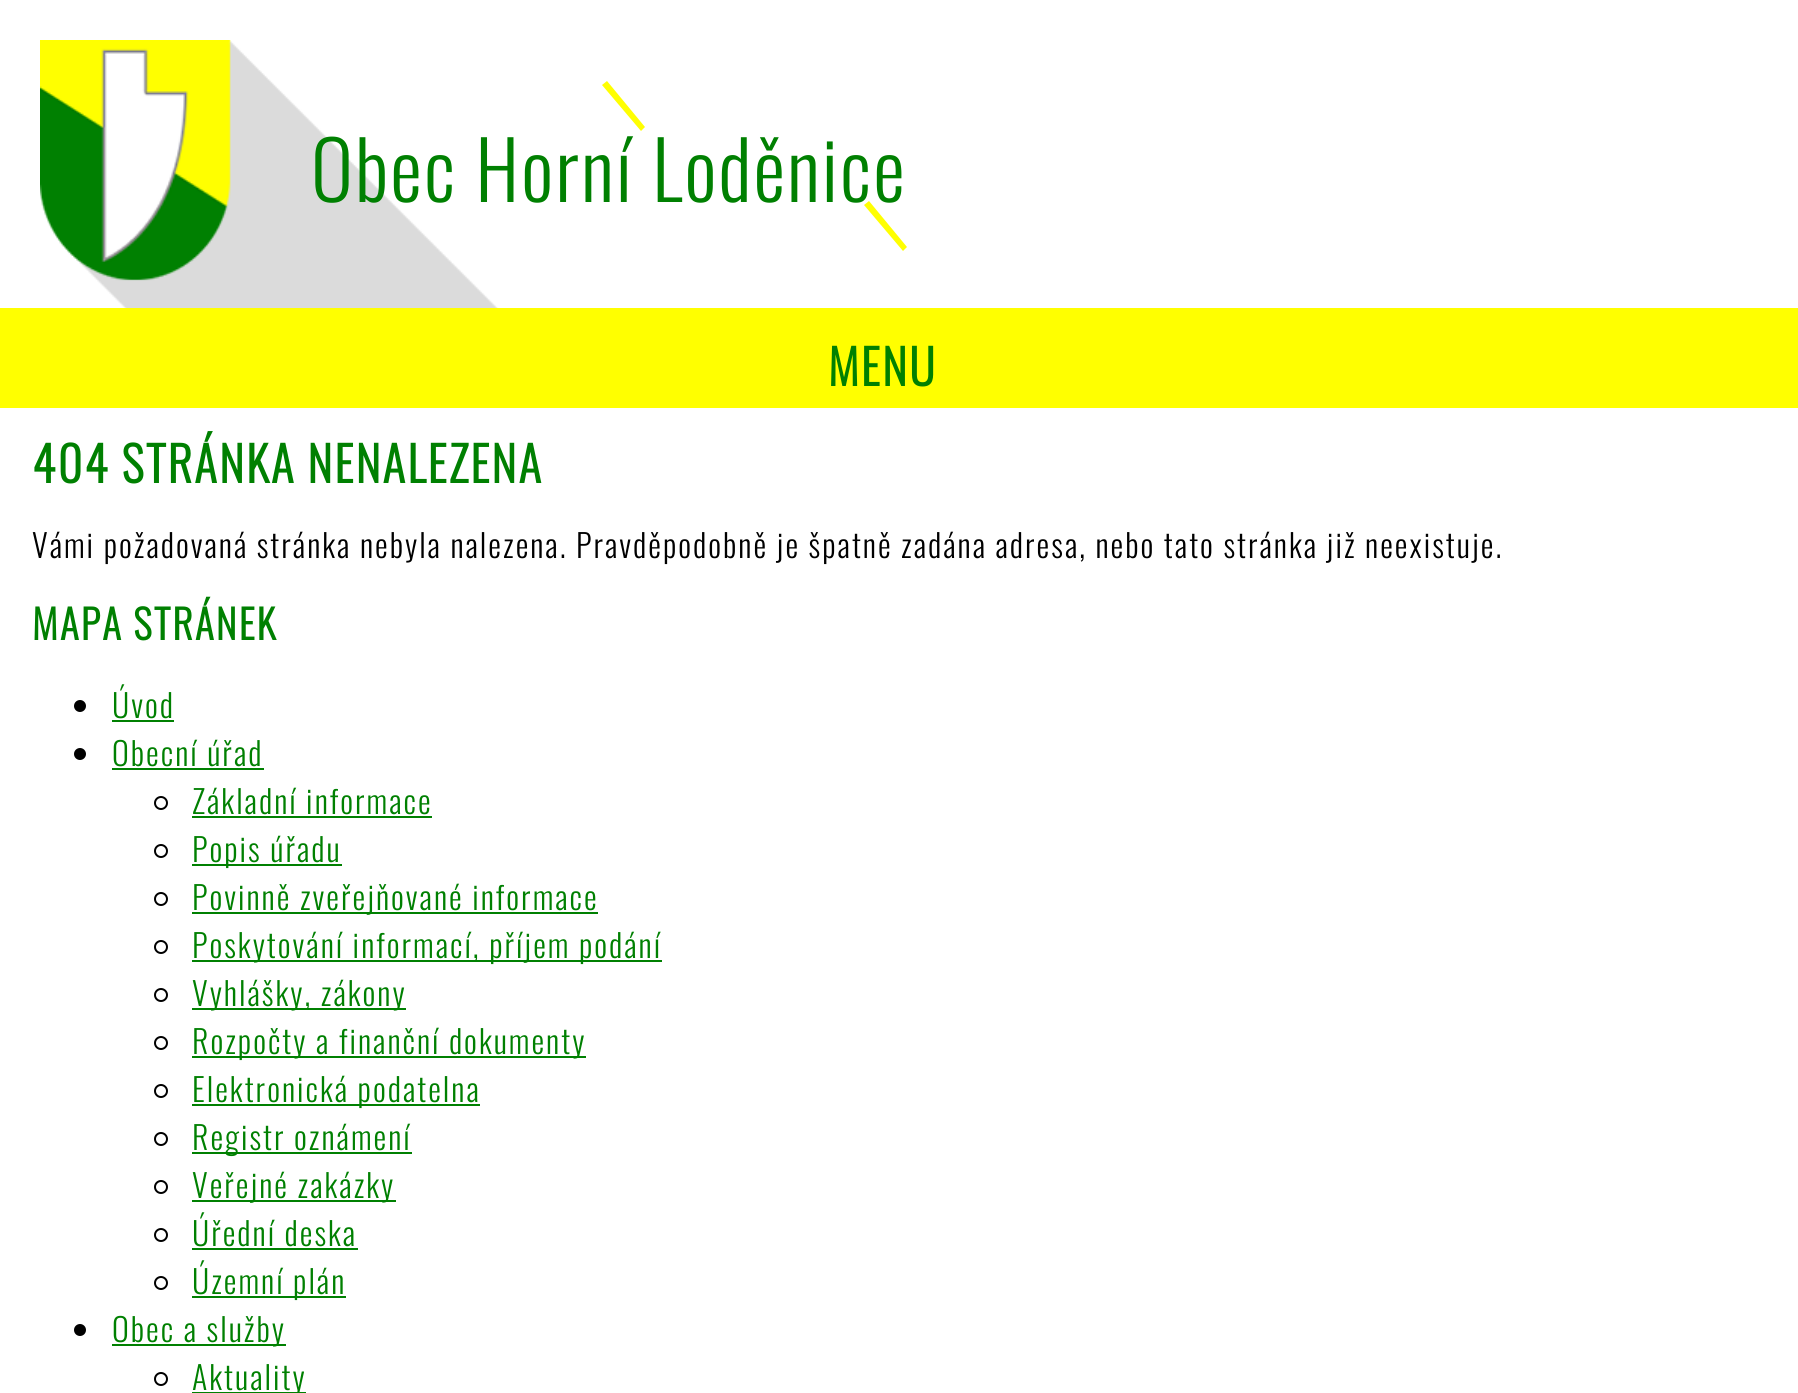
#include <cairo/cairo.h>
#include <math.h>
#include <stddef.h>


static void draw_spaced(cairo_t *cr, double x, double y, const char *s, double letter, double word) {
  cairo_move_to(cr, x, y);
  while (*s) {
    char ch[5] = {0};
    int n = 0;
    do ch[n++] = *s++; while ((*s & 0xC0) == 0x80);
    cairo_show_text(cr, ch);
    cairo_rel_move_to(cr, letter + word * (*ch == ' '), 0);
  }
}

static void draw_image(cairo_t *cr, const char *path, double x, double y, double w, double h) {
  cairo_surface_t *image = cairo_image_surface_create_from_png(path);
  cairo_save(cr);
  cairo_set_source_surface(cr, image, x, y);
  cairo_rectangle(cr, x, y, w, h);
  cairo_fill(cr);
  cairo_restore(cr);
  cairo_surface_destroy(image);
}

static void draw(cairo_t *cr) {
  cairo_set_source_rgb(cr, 1, 1, 1);
  cairo_paint(cr);
  draw_image(cr, "images/1.png", 40, 40, 459, 268);
  cairo_set_source_rgb(cr, 1, 1, 1 / 255.0);
  cairo_new_path(cr);
  cairo_move_to(cr, 645, 127);
  cairo_line_to(cr, 641, 131);
  cairo_line_to(cr, 602, 85);
  cairo_line_to(cr, 607, 81);
  cairo_close_path(cr);
  cairo_fill(cr);
  cairo_set_source_rgb(cr, 1, 1, 0);
  cairo_rectangle(cr, 0, 308, 1798, 100);
  cairo_fill(cr);
  cairo_set_source_rgb(cr, 0, 0, 0);
  cairo_arc(cr, 80, 706, 6, 0, 2 * M_PI);
  cairo_fill(cr);
  cairo_set_source_rgb(cr, 0, 128 / 255.0, 1 / 255.0);
  cairo_rectangle(cr, 112, 720, 62, 2);
  cairo_fill(cr);
  cairo_set_source_rgb(cr, 0, 0, 0);
  cairo_arc(cr, 80, 754, 6, 0, 2 * M_PI);
  cairo_fill(cr);
  cairo_set_source_rgb(cr, 0, 128 / 255.0, 1 / 255.0);
  cairo_rectangle(cr, 112, 768, 152, 2);
  cairo_fill(cr);
  cairo_arc(cr, 161, 803, 6, 0, 2 * M_PI);
  cairo_set_source_rgb(cr, 0, 0, 0);
  cairo_stroke(cr);
  cairo_set_source_rgb(cr, 0, 128 / 255.0, 1 / 255.0);
  cairo_rectangle(cr, 192, 816, 240, 2);
  cairo_fill(cr);
  cairo_arc(cr, 161, 851, 6, 0, 2 * M_PI);
  cairo_set_source_rgb(cr, 0, 0, 0);
  cairo_stroke(cr);
  cairo_set_source_rgb(cr, 0, 128 / 255.0, 1 / 255.0);
  cairo_rectangle(cr, 192, 864, 150, 2);
  cairo_fill(cr);
  cairo_arc(cr, 161, 899, 6, 0, 2 * M_PI);
  cairo_set_source_rgb(cr, 0, 0, 0);
  cairo_stroke(cr);
  cairo_set_source_rgb(cr, 0, 128 / 255.0, 1 / 255.0);
  cairo_rectangle(cr, 192, 912, 406, 2);
  cairo_fill(cr);
  cairo_arc(cr, 161, 947, 6, 0, 2 * M_PI);
  cairo_set_source_rgb(cr, 0, 0, 0);
  cairo_stroke(cr);
  cairo_set_source_rgb(cr, 0, 128 / 255.0, 1 / 255.0);
  cairo_rectangle(cr, 192, 960, 470, 2);
  cairo_fill(cr);
  cairo_arc(cr, 161, 995, 6, 0, 2 * M_PI);
  cairo_set_source_rgb(cr, 0, 0, 0);
  cairo_stroke(cr);
  cairo_set_source_rgb(cr, 0, 128 / 255.0, 1 / 255.0);
  cairo_rectangle(cr, 192, 1008, 214, 2);
  cairo_fill(cr);
  cairo_arc(cr, 161, 1043, 6, 0, 2 * M_PI);
  cairo_set_source_rgb(cr, 0, 0, 0);
  cairo_stroke(cr);
  cairo_set_source_rgb(cr, 0, 128 / 255.0, 1 / 255.0);
  cairo_rectangle(cr, 192, 1056, 394, 2);
  cairo_fill(cr);
  cairo_arc(cr, 161, 1091, 6, 0, 2 * M_PI);
  cairo_set_source_rgb(cr, 0, 0, 0);
  cairo_stroke(cr);
  cairo_set_source_rgb(cr, 0, 128 / 255.0, 1 / 255.0);
  cairo_rectangle(cr, 192, 1104, 288, 2);
  cairo_fill(cr);
  cairo_arc(cr, 161, 1139, 6, 0, 2 * M_PI);
  cairo_set_source_rgb(cr, 0, 0, 0);
  cairo_stroke(cr);
  cairo_set_source_rgb(cr, 0, 128 / 255.0, 1 / 255.0);
  cairo_rectangle(cr, 192, 1152, 220, 2);
  cairo_fill(cr);
  cairo_arc(cr, 161, 1187, 6, 0, 2 * M_PI);
  cairo_set_source_rgb(cr, 0, 0, 0);
  cairo_stroke(cr);
  cairo_set_source_rgb(cr, 0, 128 / 255.0, 1 / 255.0);
  cairo_rectangle(cr, 192, 1200, 204, 2);
  cairo_fill(cr);
  cairo_arc(cr, 161, 1235, 6, 0, 2 * M_PI);
  cairo_set_source_rgb(cr, 0, 0, 0);
  cairo_stroke(cr);
  cairo_set_source_rgb(cr, 0, 128 / 255.0, 1 / 255.0);
  cairo_rectangle(cr, 192, 1248, 166, 2);
  cairo_fill(cr);
  cairo_arc(cr, 161, 1283, 6, 0, 2 * M_PI);
  cairo_set_source_rgb(cr, 0, 0, 0);
  cairo_stroke(cr);
  cairo_set_source_rgb(cr, 0, 128 / 255.0, 1 / 255.0);
  cairo_rectangle(cr, 192, 1296, 154, 2);
  cairo_fill(cr);
  cairo_set_source_rgb(cr, 0, 0, 0);
  cairo_arc(cr, 80, 1330, 6, 0, 2 * M_PI);
  cairo_fill(cr);
  cairo_set_source_rgb(cr, 0, 128 / 255.0, 1 / 255.0);
  cairo_rectangle(cr, 112, 1344, 174, 2);
  cairo_fill(cr);
  cairo_arc(cr, 161, 1379, 6, 0, 2 * M_PI);
  cairo_set_source_rgb(cr, 0, 0, 0);
  cairo_stroke(cr);
  cairo_set_source_rgb(cr, 0, 128 / 255.0, 1 / 255.0);
  cairo_rectangle(cr, 192, 1392, 114, 1);
  cairo_fill(cr);
  cairo_select_font_face(cr, "Oswald Light", CAIRO_FONT_SLANT_NORMAL, CAIRO_FONT_WEIGHT_NORMAL);
  cairo_set_font_size(cr, 80);
  draw_spaced(cr, 311, 202, "Obec Horní Loděnice", 2, 0);
  cairo_set_source_rgb(cr, 1, 1, 1 / 255.0);
  cairo_new_path(cr);
  cairo_move_to(cr, 907, 247);
  cairo_line_to(cr, 903, 251);
  cairo_line_to(cr, 864, 205);
  cairo_line_to(cr, 869, 201);
  cairo_close_path(cr);
  cairo_fill(cr);
  cairo_select_font_face(cr, "Oswald", CAIRO_FONT_SLANT_NORMAL, CAIRO_FONT_WEIGHT_BOLD);
  cairo_set_font_size(cr, 48);
  cairo_set_source_rgb(cr, 0, 128 / 255.0, 1 / 255.0);
  draw_spaced(cr, 828, 386, "MENU", 2, 0);
  draw_spaced(cr, 32, 483, "404 STRÁNKA NENALEZENA", 2, 0);
  cairo_select_font_face(cr, "Oswald Light", CAIRO_FONT_SLANT_NORMAL, CAIRO_FONT_WEIGHT_NORMAL);
  cairo_set_font_size(cr, 32);
  cairo_set_source_rgb(cr, 0, 0, 0);
  draw_spaced(cr, 32, 558, "Vámi požadovaná stránka nebyla nalezena. Pravděpodobně je špatně zadána adresa, nebo tato stránka již neexistuje.", 2, 0);
  cairo_select_font_face(cr, "Oswald", CAIRO_FONT_SLANT_NORMAL, CAIRO_FONT_WEIGHT_BOLD);
  cairo_set_font_size(cr, 40);
  cairo_set_source_rgb(cr, 0, 128 / 255.0, 1 / 255.0);
  draw_spaced(cr, 32, 640, "MAPA STRÁNEK", 2, 0);
  cairo_select_font_face(cr, "Oswald Light", CAIRO_FONT_SLANT_NORMAL, CAIRO_FONT_WEIGHT_NORMAL);
  cairo_set_font_size(cr, 32);
  draw_spaced(cr, 112, 718, "Úvod", 2, 0);
  draw_spaced(cr, 112, 766, "Obecní úřad", 2, 0);
  draw_spaced(cr, 192, 814, "Základní informace", 2, 0);
  draw_spaced(cr, 192, 862, "Popis úřadu", 2, 0);
  draw_spaced(cr, 192, 910, "Povinně zveřejňované informace", 2, 0);
  draw_spaced(cr, 192, 958, "Poskytování informací, příjem podání", 2, 0);
  draw_spaced(cr, 192, 1006, "Vyhlášky, zákony", 2, 0);
  draw_spaced(cr, 192, 1054, "Rozpočty a finanční dokumenty", 2, 0);
  draw_spaced(cr, 192, 1102, "Elektronická podatelna", 2, 0);
  draw_spaced(cr, 192, 1150, "Registr oznámení", 2, 0);
  draw_spaced(cr, 192, 1198, "Veřejné zakázky", 2, 0);
  draw_spaced(cr, 192, 1246, "Úřední deska", 2, 0);
  draw_spaced(cr, 192, 1294, "Územní plán", 2, 0);
  draw_spaced(cr, 112, 1342, "Obec a služby", 2, 0);
  draw_spaced(cr, 192, 1390, "Aktuality", 2, 0);
}

int main(void) {
  cairo_surface_t *surface = cairo_image_surface_create(CAIRO_FORMAT_RGB24, 1798, 1393);
  cairo_t *cr = cairo_create(surface);
  cairo_font_options_t *options = cairo_font_options_create();
  cairo_font_options_set_hint_metrics(options, CAIRO_HINT_METRICS_OFF);
  cairo_font_options_set_hint_style(options, CAIRO_HINT_STYLE_NONE);
  cairo_set_font_options(cr, options);
  cairo_set_miter_limit(cr, 4);
  draw(cr);
  cairo_surface_write_to_png(surface, "out.png");
  cairo_font_options_destroy(options);
  cairo_destroy(cr);
  cairo_surface_destroy(surface);
  return 0;
}
